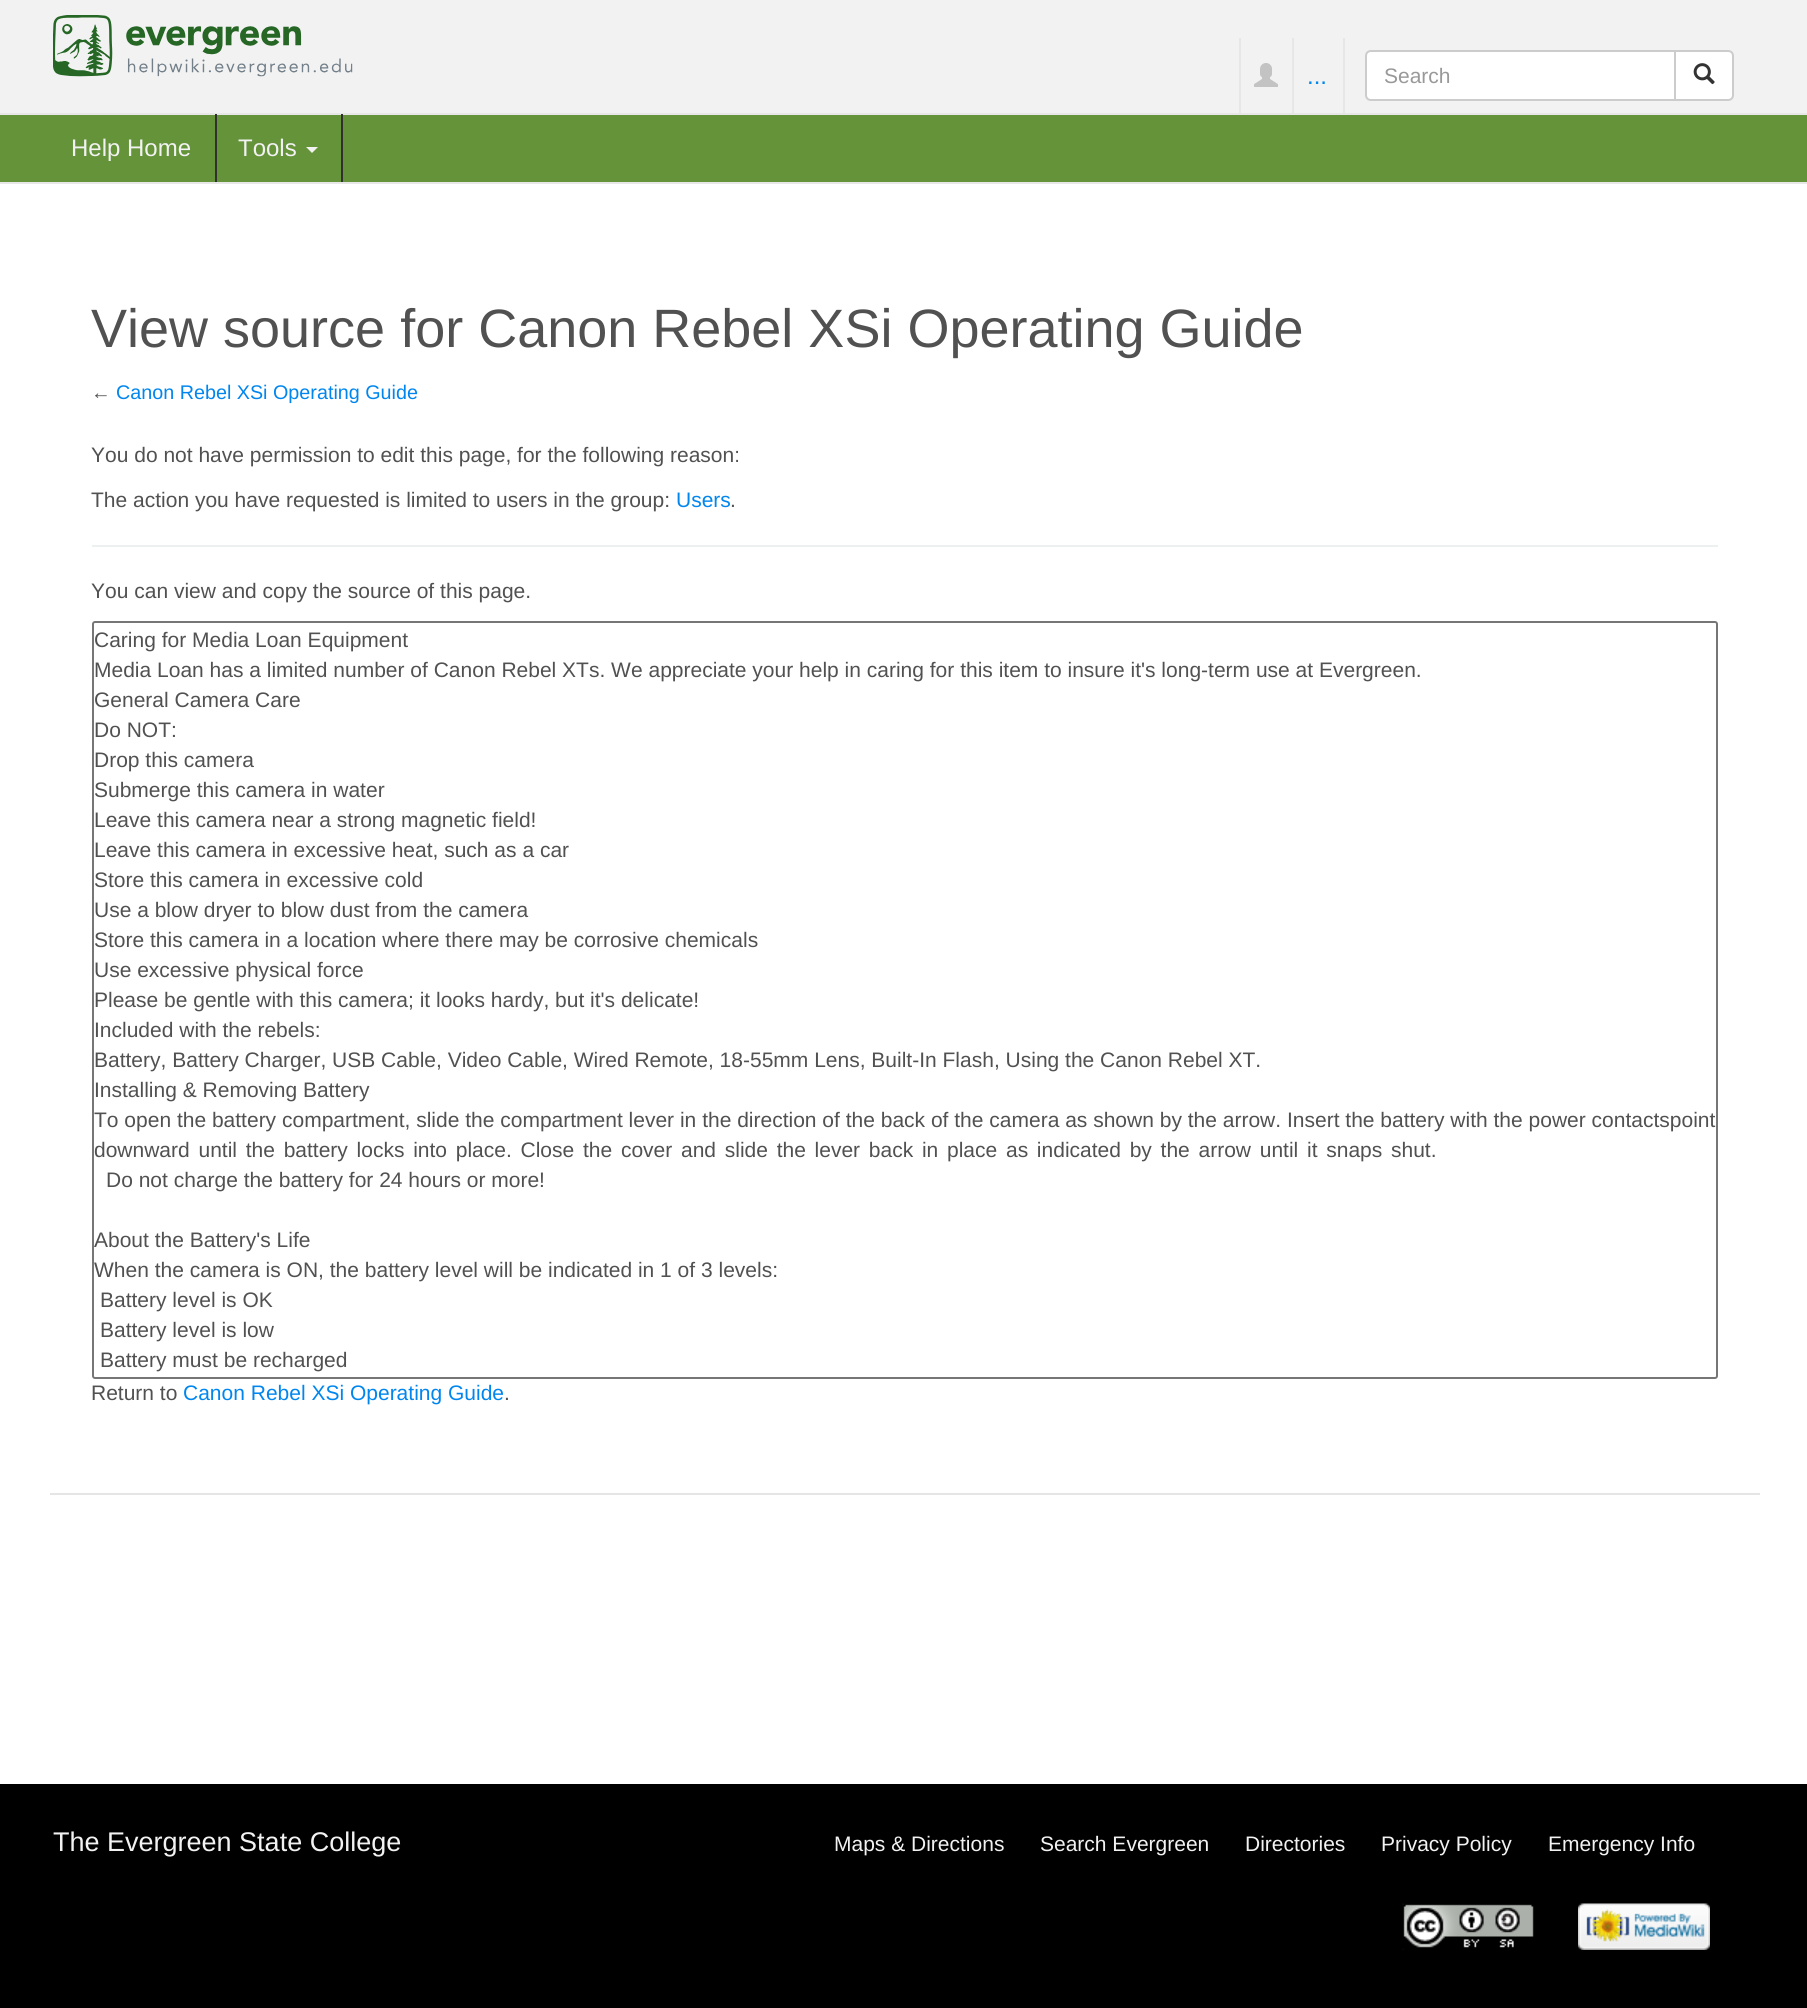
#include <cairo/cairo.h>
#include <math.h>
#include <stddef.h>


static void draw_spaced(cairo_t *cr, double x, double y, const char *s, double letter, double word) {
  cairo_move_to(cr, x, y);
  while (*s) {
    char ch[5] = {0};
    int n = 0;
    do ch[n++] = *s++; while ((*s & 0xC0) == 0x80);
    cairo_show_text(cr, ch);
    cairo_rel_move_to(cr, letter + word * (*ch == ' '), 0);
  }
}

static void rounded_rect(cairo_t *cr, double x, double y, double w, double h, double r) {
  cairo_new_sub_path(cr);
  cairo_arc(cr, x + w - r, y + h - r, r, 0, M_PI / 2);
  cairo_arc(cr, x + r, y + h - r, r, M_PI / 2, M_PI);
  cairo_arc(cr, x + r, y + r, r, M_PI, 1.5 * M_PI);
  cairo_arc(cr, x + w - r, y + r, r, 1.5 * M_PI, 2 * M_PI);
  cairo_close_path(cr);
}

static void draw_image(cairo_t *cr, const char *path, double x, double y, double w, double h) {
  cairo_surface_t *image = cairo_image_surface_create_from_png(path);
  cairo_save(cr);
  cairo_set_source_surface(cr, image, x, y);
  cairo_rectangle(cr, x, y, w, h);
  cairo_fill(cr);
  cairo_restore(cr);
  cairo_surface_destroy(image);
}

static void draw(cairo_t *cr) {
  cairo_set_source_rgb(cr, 1, 1, 1);
  cairo_paint(cr);
  cairo_set_source_rgb(cr, 242 / 255.0, 242 / 255.0, 242 / 255.0);
  cairo_rectangle(cr, 0, 0, 1807, 113);
  cairo_fill(cr);
  draw_image(cr, "images/1.png", 53, 15, 300, 62);
  cairo_set_source_rgb(cr, 231 / 255.0, 231 / 255.0, 231 / 255.0);
  cairo_rectangle(cr, 1292, 38, 2, 75);
  cairo_fill(cr);
  cairo_rectangle(cr, 1239, 38, 2, 75);
  cairo_fill(cr);
  draw_image(cr, "images/2.png", 1254, 63, 24, 24);
  cairo_rectangle(cr, 1343, 38, 2, 75);
  cairo_fill(cr);
  cairo_set_source_rgb(cr, 1, 1, 1);
  cairo_new_path(cr);
  cairo_move_to(cr, 1371, 51);
  cairo_line_to(cr, 1675, 51);
  cairo_line_to(cr, 1675, 100);
  cairo_line_to(cr, 1371, 100);
  cairo_curve_to(cr, 1368, 100, 1366, 98, 1366, 95);
  cairo_line_to(cr, 1366, 56);
  cairo_curve_to(cr, 1366, 53, 1368, 51, 1371, 51);
  cairo_close_path(cr);
  cairo_fill_preserve(cr);
  cairo_set_source_rgb(cr, 204 / 255.0, 204 / 255.0, 204 / 255.0);
  cairo_stroke(cr);
  cairo_set_source_rgb(cr, 1, 1, 1);
  cairo_new_path(cr);
  cairo_move_to(cr, 1675, 51);
  cairo_line_to(cr, 1728, 51);
  cairo_curve_to(cr, 1731, 51, 1733, 53, 1733, 56);
  cairo_line_to(cr, 1733, 95);
  cairo_curve_to(cr, 1733, 98, 1731, 100, 1728, 100);
  cairo_line_to(cr, 1675, 100);
  cairo_close_path(cr);
  cairo_fill_preserve(cr);
  cairo_set_source_rgb(cr, 204 / 255.0, 204 / 255.0, 204 / 255.0);
  cairo_stroke(cr);
  draw_image(cr, "images/3.png", 1693, 63, 22, 22);
  cairo_set_source_rgb(cr, 100 / 255.0, 147 / 255.0, 58 / 255.0);
  cairo_rectangle(cr, 0, 115, 1807, 67);
  cairo_fill(cr);
  cairo_set_source_rgb(cr, 231 / 255.0, 231 / 255.0, 231 / 255.0);
  cairo_rectangle(cr, 0, 113, 1807, 2);
  cairo_fill(cr);
  cairo_rectangle(cr, 0, 182, 1807, 2);
  cairo_fill(cr);
  cairo_set_source_rgb(cr, 48 / 255.0, 48 / 255.0, 48 / 255.0);
  cairo_rectangle(cr, 215, 114, 2, 68);
  cairo_fill(cr);
  cairo_rectangle(cr, 341, 114, 2, 68);
  cairo_fill(cr);
  cairo_set_source_rgb(cr, 242 / 255.0, 242 / 255.0, 242 / 255.0);
  cairo_new_path(cr);
  cairo_move_to(cr, 306, 147);
  cairo_line_to(cr, 318, 147);
  cairo_line_to(cr, 312, 153);
  cairo_close_path(cr);
  cairo_fill(cr);
  cairo_set_source_rgb(cr, 236 / 255.0, 240 / 255.0, 241 / 255.0);
  cairo_rectangle(cr, 92, 545, 1626, 2);
  cairo_fill(cr);
  rounded_rect(cr, 93, 622, 1624, 756, 2);
  cairo_set_source_rgb(cr, 118 / 255.0, 118 / 255.0, 118 / 255.0);
  cairo_stroke(cr);
  cairo_set_source_rgb(cr, 229 / 255.0, 229 / 255.0, 229 / 255.0);
  cairo_rectangle(cr, 50, 1493, 1710, 2);
  cairo_fill(cr);
  cairo_set_source_rgb(cr, 0, 0, 0);
  cairo_rectangle(cr, 0, 1784, 1807, 224);
  cairo_fill(cr);
  draw_image(cr, "images/4.png", 1402, 1903, 132, 47);
  draw_image(cr, "images/5.png", 1578, 1903, 132, 47);
  cairo_select_font_face(cr, "Liberation Sans", CAIRO_FONT_SLANT_NORMAL, CAIRO_FONT_WEIGHT_NORMAL);
  cairo_set_font_size(cr, 24);
  cairo_set_source_rgb(cr, 0, 134 / 255.0, 238 / 255.0);
  cairo_move_to(cr, 1307, 84);
  cairo_show_text(cr, "...");
  cairo_set_font_size(cr, 21);
  cairo_set_source_rgb(cr, 153 / 255.0, 153 / 255.0, 153 / 255.0);
  cairo_move_to(cr, 1384, 83);
  cairo_show_text(cr, "Search");
  cairo_set_font_size(cr, 24);
  cairo_set_source_rgb(cr, 242 / 255.0, 242 / 255.0, 242 / 255.0);
  cairo_move_to(cr, 71, 156);
  cairo_show_text(cr, "Help Home");
  cairo_move_to(cr, 238, 156);
  cairo_show_text(cr, "Tools");
  cairo_set_font_size(cr, 54);
  cairo_set_source_rgb(cr, 81 / 255.0, 81 / 255.0, 81 / 255.0);
  cairo_move_to(cr, 91, 347);
  cairo_show_text(cr, "View source for Canon Rebel XSi Operating Guide");
  cairo_set_font_size(cr, 19.75);
  cairo_move_to(cr, 91, 399);
  cairo_show_text(cr, "←");
  cairo_set_source_rgb(cr, 0, 134 / 255.0, 238 / 255.0);
  cairo_move_to(cr, 116, 399);
  cairo_show_text(cr, "Canon Rebel XSi Operating Guide");
  cairo_set_font_size(cr, 21);
  cairo_set_source_rgb(cr, 81 / 255.0, 81 / 255.0, 81 / 255.0);
  cairo_move_to(cr, 91, 462);
  cairo_show_text(cr, "You do not have permission to edit this page, for the following reason:");
  cairo_move_to(cr, 91, 507);
  cairo_show_text(cr, "The action you have requested is limited to users in the group:");
  cairo_set_source_rgb(cr, 0, 134 / 255.0, 238 / 255.0);
  cairo_move_to(cr, 676, 507);
  cairo_show_text(cr, "Users");
  cairo_set_source_rgb(cr, 81 / 255.0, 81 / 255.0, 81 / 255.0);
  cairo_move_to(cr, 730, 507);
  cairo_show_text(cr, ".");
  cairo_move_to(cr, 91, 598);
  cairo_show_text(cr, "You can view and copy the source of this page.");
  cairo_move_to(cr, 94, 647);
  cairo_show_text(cr, "Caring for Media Loan Equipment");
  cairo_move_to(cr, 94, 677);
  cairo_show_text(cr, "Media Loan has a limited number of Canon Rebel XTs. We appreciate your help in caring for this item to insure it's long-term use at Evergreen.");
  cairo_move_to(cr, 94, 707);
  cairo_show_text(cr, "General Camera Care");
  cairo_move_to(cr, 94, 737);
  cairo_show_text(cr, "Do NOT:");
  cairo_move_to(cr, 94, 767);
  cairo_show_text(cr, "Drop this camera");
  cairo_move_to(cr, 94, 797);
  cairo_show_text(cr, "Submerge this camera in water");
  cairo_move_to(cr, 94, 827);
  cairo_show_text(cr, "Leave this camera near a strong magnetic field!");
  cairo_move_to(cr, 94, 857);
  cairo_show_text(cr, "Leave this camera in excessive heat, such as a car");
  cairo_move_to(cr, 94, 887);
  cairo_show_text(cr, "Store this camera in excessive cold");
  cairo_move_to(cr, 94, 917);
  cairo_show_text(cr, "Use a blow dryer to blow dust from the camera");
  cairo_move_to(cr, 94, 947);
  cairo_show_text(cr, "Store this camera in a location where there may be corrosive chemicals");
  cairo_move_to(cr, 94, 977);
  cairo_show_text(cr, "Use excessive physical force");
  cairo_move_to(cr, 94, 1007);
  cairo_show_text(cr, "Please be gentle with this camera; it looks hardy, but it's delicate!");
  cairo_move_to(cr, 94, 1037);
  cairo_show_text(cr, "Included with the rebels:");
  cairo_move_to(cr, 94, 1067);
  cairo_show_text(cr, "Battery, Battery Charger, USB Cable, Video Cable, Wired Remote, 18-55mm Lens, Built-In Flash, Using the Canon Rebel XT.");
  cairo_move_to(cr, 94, 1097);
  cairo_show_text(cr, "Installing & Removing Battery");
  cairo_move_to(cr, 94, 1127);
  cairo_show_text(cr, "To open the battery compartment, slide the compartment lever in the direction of the back of the camera as shown by the arrow. Insert the battery with the power contactspoint");
  draw_spaced(cr, 94, 1157, "downward until the battery locks into place. Close the cover and slide the lever back in place as indicated by the arrow until it snaps shut.", 0, 2.9);
  cairo_move_to(cr, 106, 1187);
  cairo_show_text(cr, "Do not charge the battery for 24 hours or more!");
  cairo_move_to(cr, 94, 1247);
  cairo_show_text(cr, "About the Battery's Life");
  cairo_move_to(cr, 94, 1277);
  cairo_show_text(cr, "When the camera is ON, the battery level will be indicated in 1 of 3 levels:");
  cairo_move_to(cr, 100, 1307);
  cairo_show_text(cr, "Battery level is OK");
  cairo_move_to(cr, 100, 1337);
  cairo_show_text(cr, "Battery level is low");
  cairo_move_to(cr, 100, 1367);
  cairo_show_text(cr, "Battery must be recharged");
  cairo_move_to(cr, 91, 1400);
  cairo_show_text(cr, "Return to");
  cairo_set_source_rgb(cr, 0, 134 / 255.0, 238 / 255.0);
  cairo_move_to(cr, 183, 1400);
  cairo_show_text(cr, "Canon Rebel XSi Operating Guide");
  cairo_set_source_rgb(cr, 81 / 255.0, 81 / 255.0, 81 / 255.0);
  cairo_move_to(cr, 504, 1400);
  cairo_show_text(cr, ".");
  cairo_set_font_size(cr, 27);
  cairo_set_source_rgb(cr, 242 / 255.0, 242 / 255.0, 242 / 255.0);
  cairo_move_to(cr, 53, 1851);
  cairo_show_text(cr, "The Evergreen State College");
  cairo_set_font_size(cr, 21);
  cairo_move_to(cr, 834, 1851);
  cairo_show_text(cr, "Maps & Directions");
  cairo_move_to(cr, 1040, 1851);
  cairo_show_text(cr, "Search Evergreen");
  cairo_move_to(cr, 1245, 1851);
  cairo_show_text(cr, "Directories");
  cairo_move_to(cr, 1381, 1851);
  cairo_show_text(cr, "Privacy Policy");
  cairo_move_to(cr, 1548, 1851);
  cairo_show_text(cr, "Emergency Info");
}

int main(void) {
  cairo_surface_t *surface = cairo_image_surface_create(CAIRO_FORMAT_RGB24, 1807, 2008);
  cairo_t *cr = cairo_create(surface);
  cairo_font_options_t *options = cairo_font_options_create();
  cairo_font_options_set_hint_metrics(options, CAIRO_HINT_METRICS_OFF);
  cairo_font_options_set_hint_style(options, CAIRO_HINT_STYLE_NONE);
  cairo_set_font_options(cr, options);
  cairo_set_miter_limit(cr, 4);
  draw(cr);
  cairo_surface_write_to_png(surface, "out.png");
  cairo_font_options_destroy(options);
  cairo_destroy(cr);
  cairo_surface_destroy(surface);
  return 0;
}
